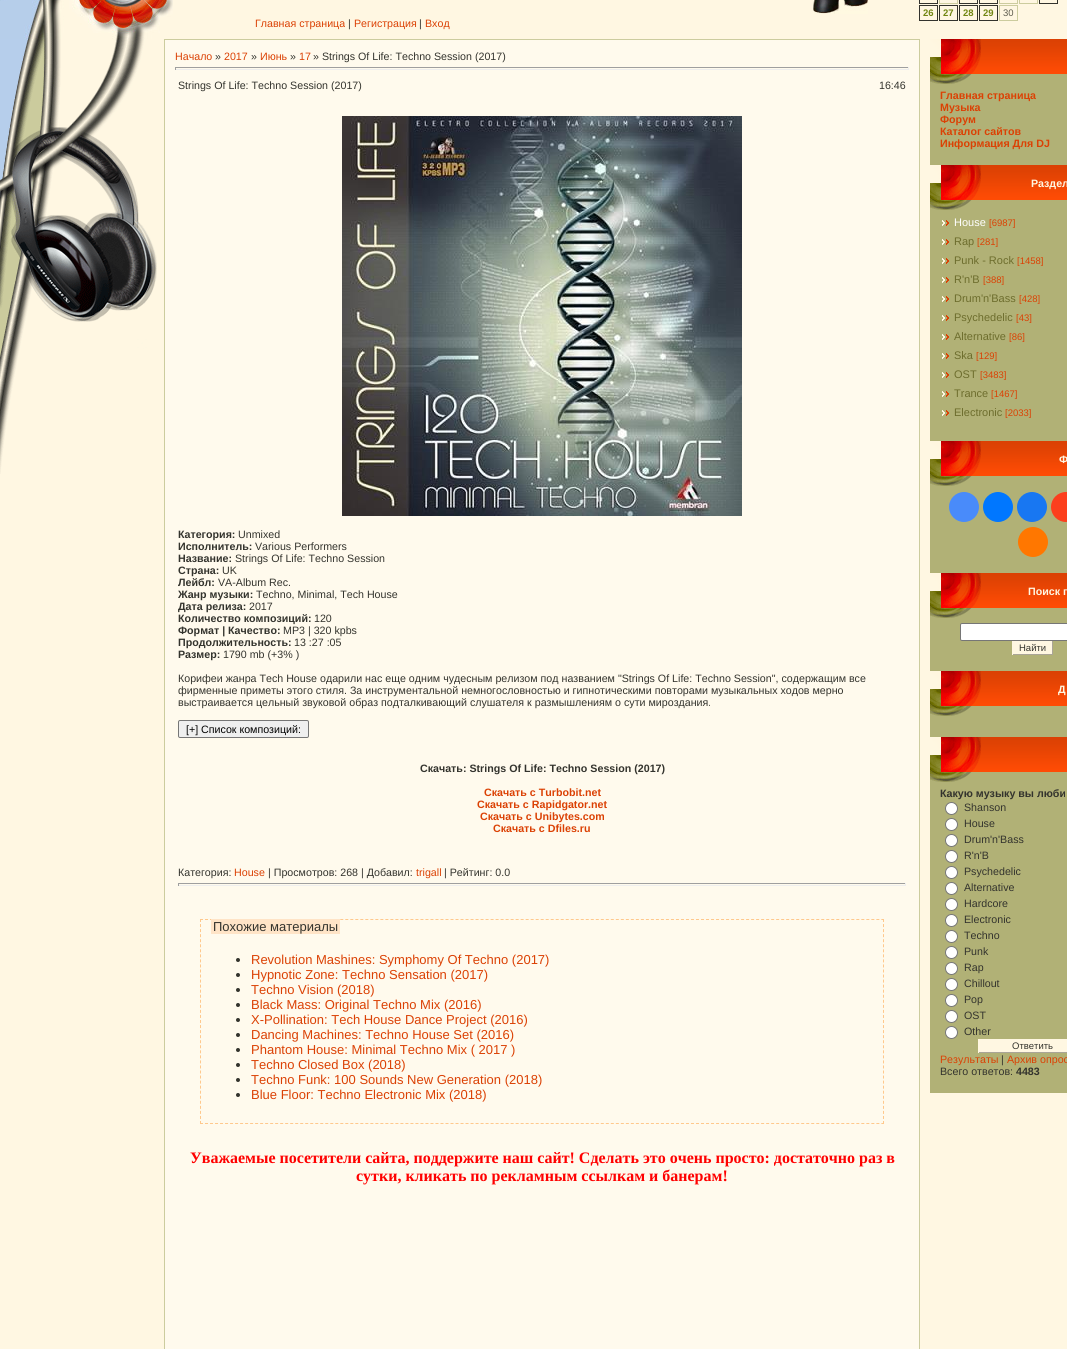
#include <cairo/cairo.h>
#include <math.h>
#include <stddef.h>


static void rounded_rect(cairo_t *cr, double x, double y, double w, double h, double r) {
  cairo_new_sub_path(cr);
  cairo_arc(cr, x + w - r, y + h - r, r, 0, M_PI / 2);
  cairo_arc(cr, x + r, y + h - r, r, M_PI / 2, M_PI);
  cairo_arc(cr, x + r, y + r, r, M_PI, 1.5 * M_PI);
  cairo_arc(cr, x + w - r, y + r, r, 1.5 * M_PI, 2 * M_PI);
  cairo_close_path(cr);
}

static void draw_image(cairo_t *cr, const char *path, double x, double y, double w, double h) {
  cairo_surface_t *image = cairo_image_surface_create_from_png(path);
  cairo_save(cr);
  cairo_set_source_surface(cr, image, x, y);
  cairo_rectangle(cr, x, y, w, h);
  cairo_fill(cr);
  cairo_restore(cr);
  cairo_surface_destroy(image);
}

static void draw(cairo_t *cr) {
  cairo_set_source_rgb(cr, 1, 247 / 255.0, 226 / 255.0);
  cairo_paint(cr);
  draw_image(cr, "images/1.png", 0, 0, 173, 39);
  cairo_rectangle(cr, 919.5, -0.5, 18, 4);
  cairo_set_source_rgb(cr, 51 / 255.0, 51 / 255.0, 45 / 255.0);
  cairo_set_line_width(cr, 1);
  cairo_stroke(cr);
  cairo_rectangle(cr, 939.5, -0.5, 18, 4);
  cairo_set_source_rgb(cr, 204 / 255.0, 204 / 255.0, 158 / 255.0);
  cairo_stroke(cr);
  cairo_rectangle(cr, 959.5, -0.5, 18, 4);
  cairo_set_source_rgb(cr, 51 / 255.0, 51 / 255.0, 45 / 255.0);
  cairo_stroke(cr);
  cairo_rectangle(cr, 979.5, -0.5, 18, 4);
  cairo_stroke(cr);
  cairo_rectangle(cr, 999.5, -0.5, 18, 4);
  cairo_set_source_rgb(cr, 204 / 255.0, 204 / 255.0, 158 / 255.0);
  cairo_stroke(cr);
  cairo_rectangle(cr, 1019.5, -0.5, 18, 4);
  cairo_stroke(cr);
  cairo_rectangle(cr, 1039.5, -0.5, 18, 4);
  cairo_set_source_rgb(cr, 51 / 255.0, 51 / 255.0, 45 / 255.0);
  cairo_stroke(cr);
  cairo_rectangle(cr, 919.5, 5.5, 18, 15);
  cairo_stroke(cr);
  cairo_rectangle(cr, 939.5, 5.5, 18, 15);
  cairo_stroke(cr);
  cairo_rectangle(cr, 959.5, 5.5, 18, 15);
  cairo_stroke(cr);
  cairo_rectangle(cr, 979.5, 5.5, 18, 15);
  cairo_stroke(cr);
  cairo_rectangle(cr, 999.5, 5.5, 18, 15);
  cairo_set_source_rgb(cr, 204 / 255.0, 204 / 255.0, 158 / 255.0);
  cairo_stroke(cr);
  draw_image(cr, "images/2.png", 813, 0, 55, 14);
  draw_image(cr, "images/3.png", 0, 39, 157, 435);
  cairo_rectangle(cr, 164.5, 39.5, 755, 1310);
  cairo_stroke(cr);
  cairo_set_source_rgb(cr, 1, 250 / 255.0, 237 / 255.0);
  cairo_rectangle(cr, 165, 40, 754, 1309);
  cairo_fill(cr);
  cairo_set_source_rgb(cr, 159 / 255.0, 159 / 255.0, 159 / 255.0);
  cairo_rectangle(cr, 175, 67, 734, 1);
  cairo_fill(cr);
  cairo_set_source_rgb(cr, 238 / 255.0, 238 / 255.0, 238 / 255.0);
  cairo_rectangle(cr, 908, 67, 1, 3);
  cairo_fill(cr);
  cairo_rectangle(cr, 175, 69, 734, 1);
  cairo_fill(cr);
  cairo_set_source_rgb(cr, 159 / 255.0, 159 / 255.0, 159 / 255.0);
  cairo_rectangle(cr, 175, 67, 1, 3);
  cairo_fill(cr);
  draw_image(cr, "images/4.png", 342, 116, 400, 400);
  cairo_set_source_rgb(cr, 239 / 255.0, 239 / 255.0, 239 / 255.0);
  rounded_rect(cr, 178.5, 720.5, 130, 17, 1.5);
  cairo_fill_preserve(cr);
  cairo_set_source_rgb(cr, 118 / 255.0, 118 / 255.0, 118 / 255.0);
  cairo_stroke(cr);
  cairo_set_source_rgb(cr, 159 / 255.0, 159 / 255.0, 159 / 255.0);
  cairo_rectangle(cr, 178, 883, 728, 1);
  cairo_fill(cr);
  cairo_set_source_rgb(cr, 238 / 255.0, 238 / 255.0, 238 / 255.0);
  cairo_rectangle(cr, 905, 883, 1, 3);
  cairo_fill(cr);
  cairo_rectangle(cr, 178, 885, 728, 1);
  cairo_fill(cr);
  cairo_set_source_rgb(cr, 159 / 255.0, 159 / 255.0, 159 / 255.0);
  cairo_rectangle(cr, 178, 883, 1, 3);
  cairo_fill(cr);
  cairo_new_path(cr);
  cairo_move_to(cr, 200, 919.5);
  cairo_line_to(cr, 884, 919.5);
  cairo_set_source_rgb(cr, 1, 200 / 255.0, 140 / 255.0);
  cairo_set_dash(cr, (double[]){3, 2.01}, 2, 0);
  cairo_stroke(cr);
  cairo_new_path(cr);
  cairo_move_to(cr, 883.5, 919);
  cairo_line_to(cr, 883.5, 1124);
  cairo_set_dash(cr, (double[]){3, 2.05}, 2, 0);
  cairo_stroke(cr);
  cairo_new_path(cr);
  cairo_move_to(cr, 200, 1123.5);
  cairo_line_to(cr, 884, 1123.5);
  cairo_set_dash(cr, (double[]){3, 2.01}, 2, 0);
  cairo_stroke(cr);
  cairo_new_path(cr);
  cairo_move_to(cr, 200.5, 919);
  cairo_line_to(cr, 200.5, 1124);
  cairo_set_dash(cr, (double[]){3, 2.05}, 2, 0);
  cairo_stroke(cr);
  cairo_set_source_rgb(cr, 1, 228 / 255.0, 199 / 255.0);
  cairo_rectangle(cr, 211, 919, 129, 15);
  cairo_fill(cr);
  cairo_set_source_rgb(cr, 51 / 255.0, 51 / 255.0, 45 / 255.0);
  cairo_arc(cr, 238, 960, 2, 0, 2 * M_PI);
  cairo_fill(cr);
  cairo_arc(cr, 238, 975, 2, 0, 2 * M_PI);
  cairo_fill(cr);
  cairo_arc(cr, 238, 990, 2, 0, 2 * M_PI);
  cairo_fill(cr);
  cairo_arc(cr, 238, 1005, 2, 0, 2 * M_PI);
  cairo_fill(cr);
  cairo_arc(cr, 238, 1020, 2, 0, 2 * M_PI);
  cairo_fill(cr);
  cairo_arc(cr, 238, 1035, 2, 0, 2 * M_PI);
  cairo_fill(cr);
  cairo_arc(cr, 238, 1050, 2, 0, 2 * M_PI);
  cairo_fill(cr);
  cairo_arc(cr, 238, 1065, 2, 0, 2 * M_PI);
  cairo_fill(cr);
  cairo_arc(cr, 238, 1080, 2, 0, 2 * M_PI);
  cairo_fill(cr);
  cairo_arc(cr, 238, 1095, 2, 0, 2 * M_PI);
  cairo_fill(cr);
  cairo_set_source_rgb(cr, 177 / 255.0, 177 / 255.0, 118 / 255.0);
  cairo_rectangle(cr, 930, 74, 137, 91);
  cairo_fill(cr);
  draw_image(cr, "images/5.png", 930, 39, 137, 45);
  cairo_rectangle(cr, 930, 200, 137, 241);
  cairo_fill(cr);
  draw_image(cr, "images/5.png", 930, 165, 137, 45);
  draw_image(cr, "images/6.png", 942, 220, 7, 6);
  draw_image(cr, "images/6.png", 942, 239, 7, 6);
  draw_image(cr, "images/6.png", 942, 258, 7, 6);
  draw_image(cr, "images/6.png", 942, 277, 7, 6);
  draw_image(cr, "images/6.png", 942, 296, 7, 6);
  draw_image(cr, "images/6.png", 942, 315, 7, 6);
  draw_image(cr, "images/6.png", 942, 334, 7, 6);
  draw_image(cr, "images/6.png", 942, 353, 7, 6);
  draw_image(cr, "images/6.png", 942, 372, 7, 6);
  draw_image(cr, "images/6.png", 942, 391, 7, 6);
  draw_image(cr, "images/6.png", 942, 410, 7, 6);
  cairo_rectangle(cr, 930, 476, 137, 97);
  cairo_fill(cr);
  draw_image(cr, "images/5.png", 930, 441, 137, 45);
  cairo_set_source_rgb(cr, 73 / 255.0, 139 / 255.0, 250 / 255.0);
  cairo_arc(cr, 964, 507, 15, 0, 2 * M_PI);
  cairo_fill(cr);
  cairo_set_source_rgb(cr, 0, 119 / 255.0, 1);
  cairo_arc(cr, 998, 507, 15, 0, 2 * M_PI);
  cairo_fill(cr);
  cairo_set_source_rgb(cr, 24 / 255.0, 119 / 255.0, 242 / 255.0);
  cairo_arc(cr, 1032, 507, 15, 0, 2 * M_PI);
  cairo_fill(cr);
  cairo_set_source_rgb(cr, 252 / 255.0, 63 / 255.0, 29 / 255.0);
  cairo_arc(cr, 1066, 507, 15, 0, 2 * M_PI);
  cairo_fill(cr);
  cairo_set_source_rgb(cr, 1, 119 / 255.0, 0);
  cairo_arc(cr, 1033, 542, 15, 0, 2 * M_PI);
  cairo_fill(cr);
  cairo_set_source_rgb(cr, 177 / 255.0, 177 / 255.0, 118 / 255.0);
  cairo_rectangle(cr, 930, 608, 137, 63);
  cairo_fill(cr);
  draw_image(cr, "images/5.png", 930, 573, 137, 45);
  cairo_set_source_rgb(cr, 1, 1, 1);
  rounded_rect(cr, 960.5, 623.5, 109, 17, 1.5);
  cairo_fill_preserve(cr);
  cairo_set_source_rgb(cr, 118 / 255.0, 118 / 255.0, 118 / 255.0);
  cairo_set_dash(cr, NULL, 0, 0);
  cairo_stroke(cr);
  cairo_set_source_rgb(cr, 1, 247 / 255.0, 226 / 255.0);
  cairo_rectangle(cr, 1013, 641, 39, 13);
  cairo_fill(cr);
  cairo_set_source_rgb(cr, 170 / 255.0, 165 / 255.0, 151 / 255.0);
  cairo_rectangle(cr, 1052, 641, 1, 14);
  cairo_fill(cr);
  cairo_rectangle(cr, 1012, 654, 41, 1);
  cairo_fill(cr);
  cairo_set_source_rgb(cr, 1, 247 / 255.0, 226 / 255.0);
  cairo_rectangle(cr, 1012, 641, 1, 14);
  cairo_fill(cr);
  cairo_set_source_rgb(cr, 177 / 255.0, 177 / 255.0, 118 / 255.0);
  cairo_rectangle(cr, 930, 706, 137, 31);
  cairo_fill(cr);
  draw_image(cr, "images/5.png", 930, 671, 137, 45);
  cairo_rectangle(cr, 930, 772, 137, 321);
  cairo_fill(cr);
  draw_image(cr, "images/5.png", 930, 737, 137, 45);
  cairo_set_source_rgb(cr, 1, 1, 1);
  cairo_arc(cr, 951.5, 808.5, 6, 0, 2 * M_PI);
  cairo_fill_preserve(cr);
  cairo_set_source_rgb(cr, 118 / 255.0, 118 / 255.0, 118 / 255.0);
  cairo_stroke(cr);
  cairo_set_source_rgb(cr, 1, 1, 1);
  cairo_arc(cr, 951.5, 824.5, 6, 0, 2 * M_PI);
  cairo_fill_preserve(cr);
  cairo_set_source_rgb(cr, 118 / 255.0, 118 / 255.0, 118 / 255.0);
  cairo_stroke(cr);
  cairo_set_source_rgb(cr, 1, 1, 1);
  cairo_arc(cr, 951.5, 840.5, 6, 0, 2 * M_PI);
  cairo_fill_preserve(cr);
  cairo_set_source_rgb(cr, 118 / 255.0, 118 / 255.0, 118 / 255.0);
  cairo_stroke(cr);
  cairo_set_source_rgb(cr, 1, 1, 1);
  cairo_arc(cr, 951.5, 856.5, 6, 0, 2 * M_PI);
  cairo_fill_preserve(cr);
  cairo_set_source_rgb(cr, 118 / 255.0, 118 / 255.0, 118 / 255.0);
  cairo_stroke(cr);
  cairo_set_source_rgb(cr, 1, 1, 1);
  cairo_arc(cr, 951.5, 872.5, 6, 0, 2 * M_PI);
  cairo_fill_preserve(cr);
  cairo_set_source_rgb(cr, 118 / 255.0, 118 / 255.0, 118 / 255.0);
  cairo_stroke(cr);
  cairo_set_source_rgb(cr, 1, 1, 1);
  cairo_arc(cr, 951.5, 888.5, 6, 0, 2 * M_PI);
  cairo_fill_preserve(cr);
  cairo_set_source_rgb(cr, 118 / 255.0, 118 / 255.0, 118 / 255.0);
  cairo_stroke(cr);
  cairo_set_source_rgb(cr, 1, 1, 1);
  cairo_arc(cr, 951.5, 904.5, 6, 0, 2 * M_PI);
  cairo_fill_preserve(cr);
  cairo_set_source_rgb(cr, 118 / 255.0, 118 / 255.0, 118 / 255.0);
  cairo_stroke(cr);
  cairo_set_source_rgb(cr, 1, 1, 1);
  cairo_arc(cr, 951.5, 920.5, 6, 0, 2 * M_PI);
  cairo_fill_preserve(cr);
  cairo_set_source_rgb(cr, 118 / 255.0, 118 / 255.0, 118 / 255.0);
  cairo_stroke(cr);
  cairo_set_source_rgb(cr, 1, 1, 1);
  cairo_arc(cr, 951.5, 936.5, 6, 0, 2 * M_PI);
  cairo_fill_preserve(cr);
  cairo_set_source_rgb(cr, 118 / 255.0, 118 / 255.0, 118 / 255.0);
  cairo_stroke(cr);
  cairo_set_source_rgb(cr, 1, 1, 1);
  cairo_arc(cr, 951.5, 952.5, 6, 0, 2 * M_PI);
  cairo_fill_preserve(cr);
  cairo_set_source_rgb(cr, 118 / 255.0, 118 / 255.0, 118 / 255.0);
  cairo_stroke(cr);
  cairo_set_source_rgb(cr, 1, 1, 1);
  cairo_arc(cr, 951.5, 968.5, 6, 0, 2 * M_PI);
  cairo_fill_preserve(cr);
  cairo_set_source_rgb(cr, 118 / 255.0, 118 / 255.0, 118 / 255.0);
  cairo_stroke(cr);
  cairo_set_source_rgb(cr, 1, 1, 1);
  cairo_arc(cr, 951.5, 984.5, 6, 0, 2 * M_PI);
  cairo_fill_preserve(cr);
  cairo_set_source_rgb(cr, 118 / 255.0, 118 / 255.0, 118 / 255.0);
  cairo_stroke(cr);
  cairo_set_source_rgb(cr, 1, 1, 1);
  cairo_arc(cr, 951.5, 1000.5, 6, 0, 2 * M_PI);
  cairo_fill_preserve(cr);
  cairo_set_source_rgb(cr, 118 / 255.0, 118 / 255.0, 118 / 255.0);
  cairo_stroke(cr);
  cairo_set_source_rgb(cr, 1, 1, 1);
  cairo_arc(cr, 951.5, 1016.5, 6, 0, 2 * M_PI);
  cairo_fill_preserve(cr);
  cairo_set_source_rgb(cr, 118 / 255.0, 118 / 255.0, 118 / 255.0);
  cairo_stroke(cr);
  cairo_set_source_rgb(cr, 1, 1, 1);
  cairo_arc(cr, 951.5, 1032.5, 6, 0, 2 * M_PI);
  cairo_fill_preserve(cr);
  cairo_set_source_rgb(cr, 118 / 255.0, 118 / 255.0, 118 / 255.0);
  cairo_stroke(cr);
  cairo_set_source_rgb(cr, 1, 247 / 255.0, 226 / 255.0);
  cairo_rectangle(cr, 979, 1039, 88, 13);
  cairo_fill(cr);
  cairo_set_source_rgb(cr, 170 / 255.0, 165 / 255.0, 151 / 255.0);
  cairo_rectangle(cr, 978, 1052, 89, 1);
  cairo_fill(cr);
  cairo_set_source_rgb(cr, 1, 247 / 255.0, 226 / 255.0);
  cairo_rectangle(cr, 978, 1039, 1, 14);
  cairo_fill(cr);
  cairo_select_font_face(cr, "Liberation Sans", CAIRO_FONT_SLANT_NORMAL, CAIRO_FONT_WEIGHT_BOLD);
  cairo_set_font_size(cr, 9.5);
  cairo_set_source_rgb(cr, 113 / 255.0, 134 / 255.0, 17 / 255.0);
  cairo_move_to(cr, 923, 16);
  cairo_show_text(cr, "26");
  cairo_move_to(cr, 943, 16);
  cairo_show_text(cr, "27");
  cairo_move_to(cr, 963, 16);
  cairo_show_text(cr, "28");
  cairo_move_to(cr, 983, 16);
  cairo_show_text(cr, "29");
  cairo_select_font_face(cr, "Liberation Sans", CAIRO_FONT_SLANT_NORMAL, CAIRO_FONT_WEIGHT_NORMAL);
  cairo_set_source_rgb(cr, 94 / 255.0, 92 / 255.0, 78 / 255.0);
  cairo_move_to(cr, 1003, 16);
  cairo_show_text(cr, "30");
  cairo_set_font_size(cr, 10.67);
  cairo_set_source_rgb(cr, 219 / 255.0, 65 / 255.0, 4 / 255.0);
  cairo_move_to(cr, 255, 27);
  cairo_show_text(cr, "Главная страница");
  cairo_set_source_rgb(cr, 51 / 255.0, 51 / 255.0, 45 / 255.0);
  cairo_move_to(cr, 348, 27);
  cairo_show_text(cr, "|");
  cairo_set_source_rgb(cr, 219 / 255.0, 65 / 255.0, 4 / 255.0);
  cairo_move_to(cr, 354, 27);
  cairo_show_text(cr, "Регистрация");
  cairo_set_source_rgb(cr, 51 / 255.0, 51 / 255.0, 45 / 255.0);
  cairo_move_to(cr, 419, 27);
  cairo_show_text(cr, "|");
  cairo_set_source_rgb(cr, 219 / 255.0, 65 / 255.0, 4 / 255.0);
  cairo_move_to(cr, 425, 27);
  cairo_show_text(cr, "Вход");
  cairo_move_to(cr, 175, 60);
  cairo_show_text(cr, "Начало");
  cairo_set_source_rgb(cr, 51 / 255.0, 51 / 255.0, 45 / 255.0);
  cairo_move_to(cr, 215, 60);
  cairo_show_text(cr, "»");
  cairo_set_source_rgb(cr, 219 / 255.0, 65 / 255.0, 4 / 255.0);
  cairo_move_to(cr, 224, 60);
  cairo_show_text(cr, "2017");
  cairo_set_source_rgb(cr, 51 / 255.0, 51 / 255.0, 45 / 255.0);
  cairo_move_to(cr, 251, 60);
  cairo_show_text(cr, "»");
  cairo_set_source_rgb(cr, 219 / 255.0, 65 / 255.0, 4 / 255.0);
  cairo_move_to(cr, 260, 60);
  cairo_show_text(cr, "Июнь");
  cairo_set_source_rgb(cr, 51 / 255.0, 51 / 255.0, 45 / 255.0);
  cairo_move_to(cr, 290, 60);
  cairo_show_text(cr, "»");
  cairo_set_source_rgb(cr, 219 / 255.0, 65 / 255.0, 4 / 255.0);
  cairo_move_to(cr, 299, 60);
  cairo_show_text(cr, "17");
  cairo_set_source_rgb(cr, 51 / 255.0, 51 / 255.0, 45 / 255.0);
  cairo_move_to(cr, 313, 60);
  cairo_show_text(cr, "» Strings Of Life: Techno Session (2017)");
  cairo_move_to(cr, 178, 89);
  cairo_show_text(cr, "Strings Of Life: Techno Session (2017)");
  cairo_move_to(cr, 879, 89);
  cairo_show_text(cr, "16:46");
  cairo_select_font_face(cr, "Liberation Sans", CAIRO_FONT_SLANT_NORMAL, CAIRO_FONT_WEIGHT_BOLD);
  cairo_move_to(cr, 178, 538);
  cairo_show_text(cr, "Категория:");
  cairo_select_font_face(cr, "Liberation Sans", CAIRO_FONT_SLANT_NORMAL, CAIRO_FONT_WEIGHT_NORMAL);
  cairo_move_to(cr, 238, 538);
  cairo_show_text(cr, "Unmixed");
  cairo_select_font_face(cr, "Liberation Sans", CAIRO_FONT_SLANT_NORMAL, CAIRO_FONT_WEIGHT_BOLD);
  cairo_move_to(cr, 178, 550);
  cairo_show_text(cr, "Исполнитель:");
  cairo_select_font_face(cr, "Liberation Sans", CAIRO_FONT_SLANT_NORMAL, CAIRO_FONT_WEIGHT_NORMAL);
  cairo_move_to(cr, 255, 550);
  cairo_show_text(cr, "Various Performers");
  cairo_select_font_face(cr, "Liberation Sans", CAIRO_FONT_SLANT_NORMAL, CAIRO_FONT_WEIGHT_BOLD);
  cairo_move_to(cr, 178, 562);
  cairo_show_text(cr, "Название:");
  cairo_select_font_face(cr, "Liberation Sans", CAIRO_FONT_SLANT_NORMAL, CAIRO_FONT_WEIGHT_NORMAL);
  cairo_move_to(cr, 235, 562);
  cairo_show_text(cr, "Strings Of Life: Techno Session");
  cairo_select_font_face(cr, "Liberation Sans", CAIRO_FONT_SLANT_NORMAL, CAIRO_FONT_WEIGHT_BOLD);
  cairo_move_to(cr, 178, 574);
  cairo_show_text(cr, "Страна:");
  cairo_select_font_face(cr, "Liberation Sans", CAIRO_FONT_SLANT_NORMAL, CAIRO_FONT_WEIGHT_NORMAL);
  cairo_move_to(cr, 222, 574);
  cairo_show_text(cr, "UK");
  cairo_select_font_face(cr, "Liberation Sans", CAIRO_FONT_SLANT_NORMAL, CAIRO_FONT_WEIGHT_BOLD);
  cairo_move_to(cr, 178, 586);
  cairo_show_text(cr, "Лейбл:");
  cairo_select_font_face(cr, "Liberation Sans", CAIRO_FONT_SLANT_NORMAL, CAIRO_FONT_WEIGHT_NORMAL);
  cairo_move_to(cr, 218, 586);
  cairo_show_text(cr, "VA-Album Rec.");
  cairo_select_font_face(cr, "Liberation Sans", CAIRO_FONT_SLANT_NORMAL, CAIRO_FONT_WEIGHT_BOLD);
  cairo_move_to(cr, 178, 598);
  cairo_show_text(cr, "Жанр музыки:");
  cairo_select_font_face(cr, "Liberation Sans", CAIRO_FONT_SLANT_NORMAL, CAIRO_FONT_WEIGHT_NORMAL);
  cairo_move_to(cr, 256, 598);
  cairo_show_text(cr, "Techno, Minimal, Tech House");
  cairo_select_font_face(cr, "Liberation Sans", CAIRO_FONT_SLANT_NORMAL, CAIRO_FONT_WEIGHT_BOLD);
  cairo_move_to(cr, 178, 610);
  cairo_show_text(cr, "Дата релиза:");
  cairo_select_font_face(cr, "Liberation Sans", CAIRO_FONT_SLANT_NORMAL, CAIRO_FONT_WEIGHT_NORMAL);
  cairo_move_to(cr, 249, 610);
  cairo_show_text(cr, "2017");
  cairo_select_font_face(cr, "Liberation Sans", CAIRO_FONT_SLANT_NORMAL, CAIRO_FONT_WEIGHT_BOLD);
  cairo_move_to(cr, 178, 622);
  cairo_show_text(cr, "Количество композиций:");
  cairo_select_font_face(cr, "Liberation Sans", CAIRO_FONT_SLANT_NORMAL, CAIRO_FONT_WEIGHT_NORMAL);
  cairo_move_to(cr, 314, 622);
  cairo_show_text(cr, "120");
  cairo_select_font_face(cr, "Liberation Sans", CAIRO_FONT_SLANT_NORMAL, CAIRO_FONT_WEIGHT_BOLD);
  cairo_move_to(cr, 178, 634);
  cairo_show_text(cr, "Формат | Качество:");
  cairo_select_font_face(cr, "Liberation Sans", CAIRO_FONT_SLANT_NORMAL, CAIRO_FONT_WEIGHT_NORMAL);
  cairo_move_to(cr, 283, 634);
  cairo_show_text(cr, "MP3 | 320 kpbs");
  cairo_select_font_face(cr, "Liberation Sans", CAIRO_FONT_SLANT_NORMAL, CAIRO_FONT_WEIGHT_BOLD);
  cairo_move_to(cr, 178, 646);
  cairo_show_text(cr, "Продолжительность:");
  cairo_select_font_face(cr, "Liberation Sans", CAIRO_FONT_SLANT_NORMAL, CAIRO_FONT_WEIGHT_NORMAL);
  cairo_move_to(cr, 294, 646);
  cairo_show_text(cr, "13 :27 :05");
  cairo_select_font_face(cr, "Liberation Sans", CAIRO_FONT_SLANT_NORMAL, CAIRO_FONT_WEIGHT_BOLD);
  cairo_move_to(cr, 178, 658);
  cairo_show_text(cr, "Размер:");
  cairo_select_font_face(cr, "Liberation Sans", CAIRO_FONT_SLANT_NORMAL, CAIRO_FONT_WEIGHT_NORMAL);
  cairo_move_to(cr, 223, 658);
  cairo_show_text(cr, "1790 mb (+3% )");
  cairo_move_to(cr, 178, 682);
  cairo_show_text(cr, "Корифеи жанра Tech House одарили нас еще одним чудесным релизом под названием \"Strings Of Life: Techno Session\", содержащим все");
  cairo_move_to(cr, 178, 694);
  cairo_show_text(cr, "фирменные приметы этого стиля. За инструментальной немногословностью и гипнотическими повторами музыкальных ходов мерно");
  cairo_move_to(cr, 178, 706);
  cairo_show_text(cr, "выстраивается цельный звуковой образ подталкивающий слушателя к размышлениям о сути мироздания.");
  cairo_set_source_rgb(cr, 0, 0, 0);
  cairo_move_to(cr, 186, 733);
  cairo_show_text(cr, "[+] Список композиций:");
  cairo_select_font_face(cr, "Liberation Sans", CAIRO_FONT_SLANT_NORMAL, CAIRO_FONT_WEIGHT_BOLD);
  cairo_set_source_rgb(cr, 51 / 255.0, 51 / 255.0, 45 / 255.0);
  cairo_move_to(cr, 420, 772);
  cairo_show_text(cr, "Скачать: Strings Of Life: Techno Session (2017)");
  cairo_set_source_rgb(cr, 219 / 255.0, 65 / 255.0, 4 / 255.0);
  cairo_move_to(cr, 484, 796);
  cairo_show_text(cr, "Скачать с Turbobit.net");
  cairo_move_to(cr, 477, 808);
  cairo_show_text(cr, "Скачать с Rapidgator.net");
  cairo_move_to(cr, 480, 820);
  cairo_show_text(cr, "Скачать с Unibytes.com");
  cairo_move_to(cr, 493, 832);
  cairo_show_text(cr, "Скачать с Dfiles.ru");
  cairo_select_font_face(cr, "Liberation Sans", CAIRO_FONT_SLANT_NORMAL, CAIRO_FONT_WEIGHT_NORMAL);
  cairo_set_source_rgb(cr, 51 / 255.0, 51 / 255.0, 45 / 255.0);
  cairo_move_to(cr, 178, 876);
  cairo_show_text(cr, "Категория:");
  cairo_set_source_rgb(cr, 219 / 255.0, 65 / 255.0, 4 / 255.0);
  cairo_move_to(cr, 234, 876);
  cairo_show_text(cr, "House");
  cairo_set_source_rgb(cr, 51 / 255.0, 51 / 255.0, 45 / 255.0);
  cairo_move_to(cr, 268, 876);
  cairo_show_text(cr, "| Просмотров: 268 | Добавил:");
  cairo_set_source_rgb(cr, 219 / 255.0, 65 / 255.0, 4 / 255.0);
  cairo_move_to(cr, 416, 876);
  cairo_show_text(cr, "trigall");
  cairo_set_source_rgb(cr, 51 / 255.0, 51 / 255.0, 45 / 255.0);
  cairo_move_to(cr, 444, 876);
  cairo_show_text(cr, "| Рейтинг: 0.0");
  cairo_set_font_size(cr, 13);
  cairo_move_to(cr, 213, 931);
  cairo_show_text(cr, "Похожие материалы");
  cairo_set_source_rgb(cr, 219 / 255.0, 65 / 255.0, 4 / 255.0);
  cairo_move_to(cr, 251, 964);
  cairo_show_text(cr, "Revolution Mashines: Symphomy Of Techno (2017)");
  cairo_move_to(cr, 251, 979);
  cairo_show_text(cr, "Hypnotic Zone: Techno Sensation (2017)");
  cairo_move_to(cr, 251, 994);
  cairo_show_text(cr, "Techno Vision (2018)");
  cairo_move_to(cr, 251, 1009);
  cairo_show_text(cr, "Black Mass: Original Techno Mix (2016)");
  cairo_move_to(cr, 251, 1024);
  cairo_show_text(cr, "X-Pollination: Tech House Dance Project (2016)");
  cairo_move_to(cr, 251, 1039);
  cairo_show_text(cr, "Dancing Machines: Techno House Set (2016)");
  cairo_move_to(cr, 251, 1054);
  cairo_show_text(cr, "Phantom House: Minimal Techno Mix ( 2017 )");
  cairo_move_to(cr, 251, 1069);
  cairo_show_text(cr, "Techno Closed Box (2018)");
  cairo_move_to(cr, 251, 1084);
  cairo_show_text(cr, "Techno Funk: 100 Sounds New Generation (2018)");
  cairo_move_to(cr, 251, 1099);
  cairo_show_text(cr, "Blue Floor: Techno Electronic Mix (2018)");
  cairo_select_font_face(cr, "Liberation Serif", CAIRO_FONT_SLANT_NORMAL, CAIRO_FONT_WEIGHT_BOLD);
  cairo_set_font_size(cr, 16);
  cairo_set_source_rgb(cr, 1, 0, 0);
  cairo_move_to(cr, 190, 1163);
  cairo_show_text(cr, "Уважаемые посетители сайта, поддержите наш сайт! Сделать это очень просто: достаточно раз в");
  cairo_move_to(cr, 356, 1181);
  cairo_show_text(cr, "сутки, кликать по рекламным ссылкам и банерам!");
  cairo_select_font_face(cr, "Liberation Sans", CAIRO_FONT_SLANT_NORMAL, CAIRO_FONT_WEIGHT_BOLD);
  cairo_set_font_size(cr, 10.67);
  cairo_set_source_rgb(cr, 219 / 255.0, 65 / 255.0, 4 / 255.0);
  cairo_move_to(cr, 940, 99);
  cairo_show_text(cr, "Главная страница");
  cairo_move_to(cr, 940, 111);
  cairo_show_text(cr, "Музыка");
  cairo_move_to(cr, 940, 123);
  cairo_show_text(cr, "Форум");
  cairo_move_to(cr, 940, 135);
  cairo_show_text(cr, "Каталог сайтов");
  cairo_move_to(cr, 940, 147);
  cairo_show_text(cr, "Информация Для DJ");
  cairo_set_source_rgb(cr, 1, 247 / 255.0, 226 / 255.0);
  cairo_move_to(cr, 1031, 187);
  cairo_show_text(cr, "Раздел");
  cairo_select_font_face(cr, "Liberation Sans", CAIRO_FONT_SLANT_NORMAL, CAIRO_FONT_WEIGHT_NORMAL);
  cairo_set_font_size(cr, 11);
  cairo_set_source_rgb(cr, 1, 1, 1);
  cairo_move_to(cr, 954, 226);
  cairo_show_text(cr, "House");
  cairo_set_font_size(cr, 9.5);
  cairo_set_source_rgb(cr, 219 / 255.0, 65 / 255.0, 4 / 255.0);
  cairo_move_to(cr, 989, 226);
  cairo_show_text(cr, "[6987]");
  cairo_set_font_size(cr, 11);
  cairo_set_source_rgb(cr, 109 / 255.0, 109 / 255.0, 45 / 255.0);
  cairo_move_to(cr, 954, 245);
  cairo_show_text(cr, "Rap");
  cairo_set_font_size(cr, 9.5);
  cairo_set_source_rgb(cr, 219 / 255.0, 65 / 255.0, 4 / 255.0);
  cairo_move_to(cr, 977, 245);
  cairo_show_text(cr, "[281]");
  cairo_set_font_size(cr, 11);
  cairo_set_source_rgb(cr, 109 / 255.0, 109 / 255.0, 45 / 255.0);
  cairo_move_to(cr, 954, 264);
  cairo_show_text(cr, "Punk - Rock");
  cairo_set_font_size(cr, 9.5);
  cairo_set_source_rgb(cr, 219 / 255.0, 65 / 255.0, 4 / 255.0);
  cairo_move_to(cr, 1017, 264);
  cairo_show_text(cr, "[1458]");
  cairo_set_font_size(cr, 11);
  cairo_set_source_rgb(cr, 109 / 255.0, 109 / 255.0, 45 / 255.0);
  cairo_move_to(cr, 954, 283);
  cairo_show_text(cr, "R'n'B");
  cairo_set_font_size(cr, 9.5);
  cairo_set_source_rgb(cr, 219 / 255.0, 65 / 255.0, 4 / 255.0);
  cairo_move_to(cr, 983, 283);
  cairo_show_text(cr, "[388]");
  cairo_set_font_size(cr, 11);
  cairo_set_source_rgb(cr, 109 / 255.0, 109 / 255.0, 45 / 255.0);
  cairo_move_to(cr, 954, 302);
  cairo_show_text(cr, "Drum'n'Bass");
  cairo_set_font_size(cr, 9.5);
  cairo_set_source_rgb(cr, 219 / 255.0, 65 / 255.0, 4 / 255.0);
  cairo_move_to(cr, 1019, 302);
  cairo_show_text(cr, "[428]");
  cairo_set_font_size(cr, 11);
  cairo_set_source_rgb(cr, 109 / 255.0, 109 / 255.0, 45 / 255.0);
  cairo_move_to(cr, 954, 321);
  cairo_show_text(cr, "Psychedelic");
  cairo_set_font_size(cr, 9.5);
  cairo_set_source_rgb(cr, 219 / 255.0, 65 / 255.0, 4 / 255.0);
  cairo_move_to(cr, 1016, 321);
  cairo_show_text(cr, "[43]");
  cairo_set_font_size(cr, 11);
  cairo_set_source_rgb(cr, 109 / 255.0, 109 / 255.0, 45 / 255.0);
  cairo_move_to(cr, 954, 340);
  cairo_show_text(cr, "Alternative");
  cairo_set_font_size(cr, 9.5);
  cairo_set_source_rgb(cr, 219 / 255.0, 65 / 255.0, 4 / 255.0);
  cairo_move_to(cr, 1009, 340);
  cairo_show_text(cr, "[86]");
  cairo_set_font_size(cr, 11);
  cairo_set_source_rgb(cr, 109 / 255.0, 109 / 255.0, 45 / 255.0);
  cairo_move_to(cr, 954, 359);
  cairo_show_text(cr, "Ska");
  cairo_set_font_size(cr, 9.5);
  cairo_set_source_rgb(cr, 219 / 255.0, 65 / 255.0, 4 / 255.0);
  cairo_move_to(cr, 976, 359);
  cairo_show_text(cr, "[129]");
  cairo_set_font_size(cr, 11);
  cairo_set_source_rgb(cr, 109 / 255.0, 109 / 255.0, 45 / 255.0);
  cairo_move_to(cr, 954, 378);
  cairo_show_text(cr, "OST");
  cairo_set_font_size(cr, 9.5);
  cairo_set_source_rgb(cr, 219 / 255.0, 65 / 255.0, 4 / 255.0);
  cairo_move_to(cr, 980, 378);
  cairo_show_text(cr, "[3483]");
  cairo_set_font_size(cr, 11);
  cairo_set_source_rgb(cr, 109 / 255.0, 109 / 255.0, 45 / 255.0);
  cairo_move_to(cr, 954, 397);
  cairo_show_text(cr, "Trance");
  cairo_set_font_size(cr, 9.5);
  cairo_set_source_rgb(cr, 219 / 255.0, 65 / 255.0, 4 / 255.0);
  cairo_move_to(cr, 991, 397);
  cairo_show_text(cr, "[1467]");
  cairo_set_font_size(cr, 11);
  cairo_set_source_rgb(cr, 109 / 255.0, 109 / 255.0, 45 / 255.0);
  cairo_move_to(cr, 954, 416);
  cairo_show_text(cr, "Electronic");
  cairo_set_font_size(cr, 9.5);
  cairo_set_source_rgb(cr, 219 / 255.0, 65 / 255.0, 4 / 255.0);
  cairo_move_to(cr, 1005, 416);
  cairo_show_text(cr, "[2033]");
  cairo_select_font_face(cr, "Liberation Sans", CAIRO_FONT_SLANT_NORMAL, CAIRO_FONT_WEIGHT_BOLD);
  cairo_set_font_size(cr, 10.67);
  cairo_set_source_rgb(cr, 1, 247 / 255.0, 226 / 255.0);
  cairo_move_to(cr, 1059, 463);
  cairo_show_text(cr, "Ф");
  cairo_move_to(cr, 1028, 595);
  cairo_show_text(cr, "Поиск п");
  cairo_select_font_face(cr, "Liberation Sans", CAIRO_FONT_SLANT_NORMAL, CAIRO_FONT_WEIGHT_NORMAL);
  cairo_set_font_size(cr, 9.5);
  cairo_set_source_rgb(cr, 51 / 255.0, 51 / 255.0, 45 / 255.0);
  cairo_move_to(cr, 1019, 651);
  cairo_show_text(cr, "Найти");
  cairo_select_font_face(cr, "Liberation Sans", CAIRO_FONT_SLANT_NORMAL, CAIRO_FONT_WEIGHT_BOLD);
  cairo_set_font_size(cr, 10.67);
  cairo_set_source_rgb(cr, 1, 247 / 255.0, 226 / 255.0);
  cairo_move_to(cr, 1058, 693);
  cairo_show_text(cr, "Д");
  cairo_set_source_rgb(cr, 51 / 255.0, 51 / 255.0, 45 / 255.0);
  cairo_move_to(cr, 940, 797);
  cairo_show_text(cr, "Какую музыку вы люби");
  cairo_select_font_face(cr, "Liberation Sans", CAIRO_FONT_SLANT_NORMAL, CAIRO_FONT_WEIGHT_NORMAL);
  cairo_move_to(cr, 964, 811);
  cairo_show_text(cr, "Shanson");
  cairo_move_to(cr, 964, 827);
  cairo_show_text(cr, "House");
  cairo_move_to(cr, 964, 843);
  cairo_show_text(cr, "Drum'n'Bass");
  cairo_move_to(cr, 964, 859);
  cairo_show_text(cr, "R'n'B");
  cairo_move_to(cr, 964, 875);
  cairo_show_text(cr, "Psychedelic");
  cairo_move_to(cr, 964, 891);
  cairo_show_text(cr, "Alternative");
  cairo_move_to(cr, 964, 907);
  cairo_show_text(cr, "Hardcore");
  cairo_move_to(cr, 964, 923);
  cairo_show_text(cr, "Electronic");
  cairo_move_to(cr, 964, 939);
  cairo_show_text(cr, "Techno");
  cairo_move_to(cr, 964, 955);
  cairo_show_text(cr, "Punk");
  cairo_move_to(cr, 964, 971);
  cairo_show_text(cr, "Rap");
  cairo_move_to(cr, 964, 987);
  cairo_show_text(cr, "Chillout");
  cairo_move_to(cr, 964, 1003);
  cairo_show_text(cr, "Pop");
  cairo_move_to(cr, 964, 1019);
  cairo_show_text(cr, "OST");
  cairo_move_to(cr, 964, 1035);
  cairo_show_text(cr, "Other");
  cairo_set_font_size(cr, 9.5);
  cairo_move_to(cr, 1012, 1049);
  cairo_show_text(cr, "Ответить");
  cairo_set_font_size(cr, 10.67);
  cairo_set_source_rgb(cr, 219 / 255.0, 65 / 255.0, 4 / 255.0);
  cairo_move_to(cr, 940, 1063);
  cairo_show_text(cr, "Результаты");
  cairo_set_source_rgb(cr, 51 / 255.0, 51 / 255.0, 45 / 255.0);
  cairo_move_to(cr, 1001, 1063);
  cairo_show_text(cr, "|");
  cairo_set_source_rgb(cr, 219 / 255.0, 65 / 255.0, 4 / 255.0);
  cairo_move_to(cr, 1007, 1063);
  cairo_show_text(cr, "Архив опрос");
  cairo_set_source_rgb(cr, 51 / 255.0, 51 / 255.0, 45 / 255.0);
  cairo_move_to(cr, 940, 1075);
  cairo_show_text(cr, "Всего ответов:");
  cairo_select_font_face(cr, "Liberation Sans", CAIRO_FONT_SLANT_NORMAL, CAIRO_FONT_WEIGHT_BOLD);
  cairo_move_to(cr, 1016, 1075);
  cairo_show_text(cr, "4483");
}

int main(void) {
  cairo_surface_t *surface = cairo_image_surface_create(CAIRO_FORMAT_RGB24, 1067, 1349);
  cairo_t *cr = cairo_create(surface);
  cairo_font_options_t *options = cairo_font_options_create();
  cairo_font_options_set_hint_metrics(options, CAIRO_HINT_METRICS_OFF);
  cairo_font_options_set_hint_style(options, CAIRO_HINT_STYLE_NONE);
  cairo_set_font_options(cr, options);
  cairo_set_miter_limit(cr, 4);
  draw(cr);
  cairo_surface_write_to_png(surface, "out.png");
  cairo_font_options_destroy(options);
  cairo_destroy(cr);
  cairo_surface_destroy(surface);
  return 0;
}
